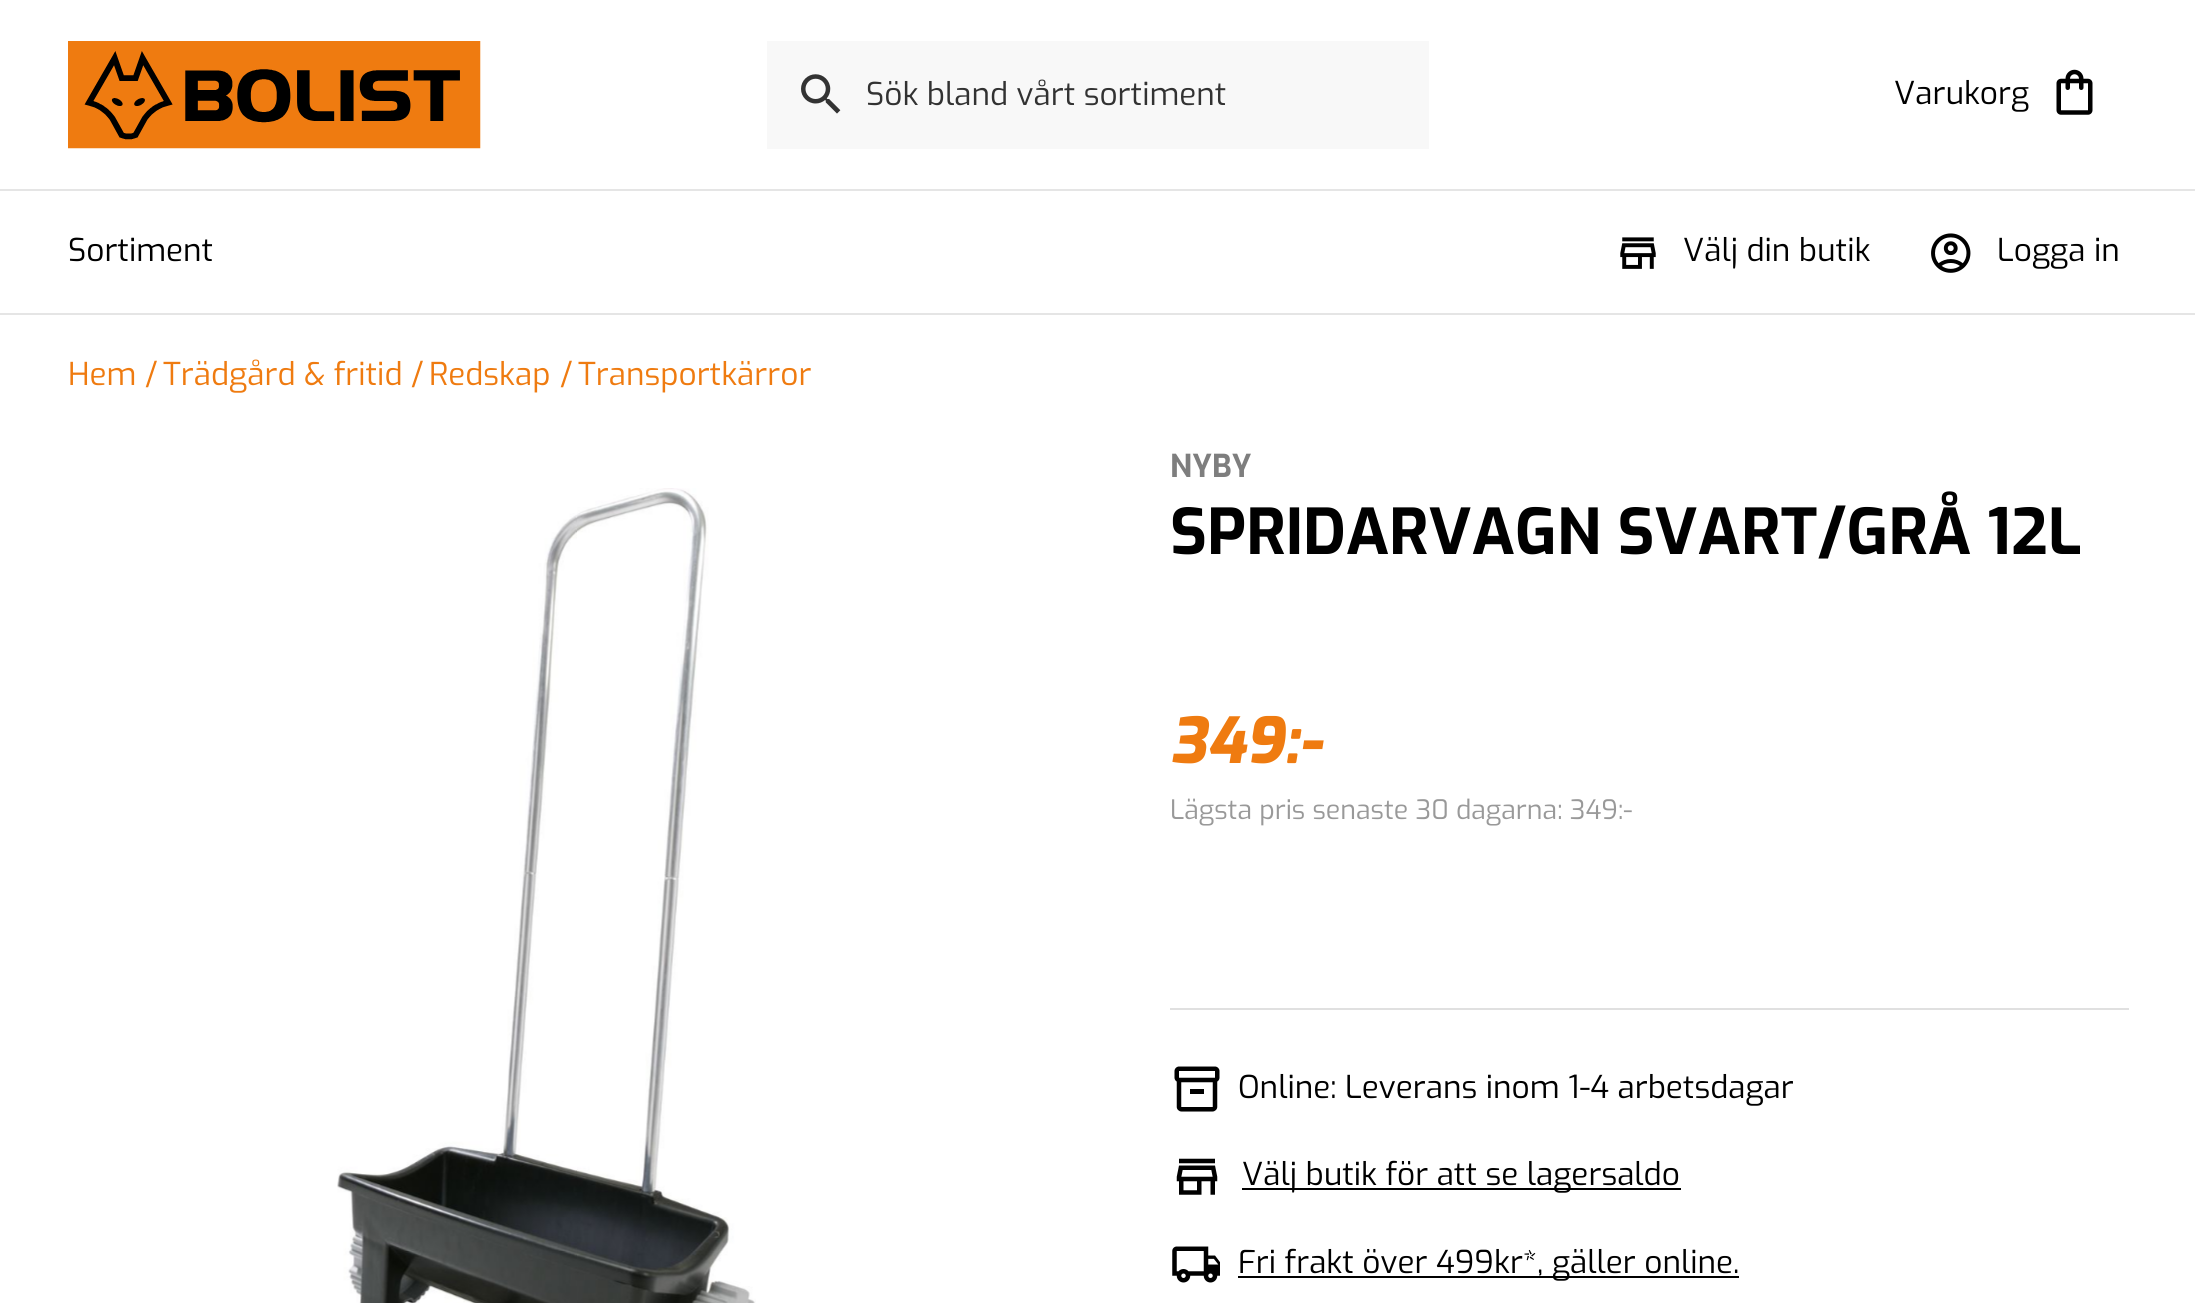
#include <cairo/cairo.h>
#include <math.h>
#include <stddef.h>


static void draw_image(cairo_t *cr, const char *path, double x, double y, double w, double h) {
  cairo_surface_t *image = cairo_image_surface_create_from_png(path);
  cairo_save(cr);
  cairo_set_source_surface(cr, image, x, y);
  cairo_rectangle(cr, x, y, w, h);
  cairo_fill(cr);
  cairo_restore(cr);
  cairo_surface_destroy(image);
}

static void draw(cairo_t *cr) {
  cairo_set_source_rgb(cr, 1, 1, 1);
  cairo_paint(cr);
  draw_image(cr, "images/1.png", 68, 41, 413, 108);
  cairo_set_source_rgb(cr, 248 / 255.0, 248 / 255.0, 248 / 255.0);
  cairo_rectangle(cr, 767, 41, 662, 108);
  cairo_fill(cr);
  draw_image(cr, "images/2.png", 801, 74, 40, 40);
  draw_image(cr, "images/3.png", 2056, 69, 37, 46);
  cairo_set_source_rgb(cr, 229 / 255.0, 229 / 255.0, 229 / 255.0);
  cairo_rectangle(cr, 0, 189, 2195, 2);
  cairo_fill(cr);
  cairo_rectangle(cr, 0, 313, 2195, 2);
  cairo_fill(cr);
  draw_image(cr, "images/4.png", 1620, 237, 36, 32);
  draw_image(cr, "images/5.png", 1931, 233, 40, 40);
  draw_image(cr, "images/6.png", 337, 488, 419, 815);
  cairo_set_source_rgb(cr, 224 / 255.0, 224 / 255.0, 224 / 255.0);
  cairo_rectangle(cr, 1170, 1008, 959, 2);
  cairo_fill(cr);
  draw_image(cr, "images/7.png", 1174, 1066, 46, 46);
  draw_image(cr, "images/8.png", 1176, 1158, 42, 37);
  cairo_set_source_rgb(cr, 0, 0, 0);
  cairo_rectangle(cr, 1242, 1188, 439, 2);
  cairo_fill(cr);
  draw_image(cr, "images/9.png", 1172, 1246, 48, 37);
  cairo_rectangle(cr, 1238, 1276, 501, 2);
  cairo_fill(cr);
  cairo_select_font_face(cr, "Exo", CAIRO_FONT_SLANT_NORMAL, CAIRO_FONT_WEIGHT_NORMAL);
  cairo_set_font_size(cr, 31.5);
  cairo_set_source_rgb(cr, 50 / 255.0, 50 / 255.0, 50 / 255.0);
  cairo_move_to(cr, 866, 105);
  cairo_show_text(cr, "Sök bland vårt sortiment");
  cairo_set_source_rgb(cr, 0, 0, 0);
  cairo_move_to(cr, 1894, 104);
  cairo_show_text(cr, "Varukorg");
  cairo_move_to(cr, 68, 261);
  cairo_show_text(cr, "Sortiment");
  cairo_move_to(cr, 1683, 261);
  cairo_show_text(cr, "Välj din butik");
  cairo_move_to(cr, 1997, 261);
  cairo_show_text(cr, "Logga in");
  cairo_set_source_rgb(cr, 239 / 255.0, 123 / 255.0, 16 / 255.0);
  cairo_move_to(cr, 68, 385);
  cairo_show_text(cr, "Hem");
  cairo_move_to(cr, 145, 385);
  cairo_show_text(cr, "/");
  cairo_move_to(cr, 163, 385);
  cairo_show_text(cr, "Trädgård & fritid");
  cairo_move_to(cr, 411, 385);
  cairo_show_text(cr, "/");
  cairo_move_to(cr, 429, 385);
  cairo_show_text(cr, "Redskap");
  cairo_move_to(cr, 560, 385);
  cairo_show_text(cr, "/");
  cairo_move_to(cr, 578, 385);
  cairo_show_text(cr, "Transportkärror");
  cairo_select_font_face(cr, "Exo", CAIRO_FONT_SLANT_NORMAL, CAIRO_FONT_WEIGHT_BOLD);
  cairo_set_source_rgb(cr, 126 / 255.0, 126 / 255.0, 126 / 255.0);
  cairo_move_to(cr, 1170, 477);
  cairo_show_text(cr, "NYBY");
  cairo_set_font_size(cr, 63);
  cairo_set_source_rgb(cr, 0, 0, 0);
  cairo_move_to(cr, 1170, 554);
  cairo_show_text(cr, "SPRIDARVAGN SVART/GRÅ 12L");
  cairo_select_font_face(cr, "Exo ExtraBold", CAIRO_FONT_SLANT_ITALIC, CAIRO_FONT_WEIGHT_NORMAL);
  cairo_set_source_rgb(cr, 239 / 255.0, 123 / 255.0, 16 / 255.0);
  cairo_move_to(cr, 1170, 763);
  cairo_show_text(cr, "349:-");
  cairo_select_font_face(cr, "Exo", CAIRO_FONT_SLANT_NORMAL, CAIRO_FONT_WEIGHT_NORMAL);
  cairo_set_font_size(cr, 26.75);
  cairo_set_source_rgb(cr, 153 / 255.0, 153 / 255.0, 153 / 255.0);
  cairo_move_to(cr, 1170, 819);
  cairo_show_text(cr, "Lägsta pris senaste 30 dagarna: 349:-");
  cairo_set_font_size(cr, 31.5);
  cairo_set_source_rgb(cr, 0, 0, 0);
  cairo_move_to(cr, 1238, 1098);
  cairo_show_text(cr, "Online: Leverans inom 1-4 arbetsdagar");
  cairo_move_to(cr, 1242, 1185);
  cairo_show_text(cr, "Välj butik för att se lagersaldo");
  cairo_move_to(cr, 1238, 1273);
  cairo_show_text(cr, "Fri frakt över 499kr*, gäller online.");
}

int main(void) {
  cairo_surface_t *surface = cairo_image_surface_create(CAIRO_FORMAT_RGB24, 2195, 1303);
  cairo_t *cr = cairo_create(surface);
  cairo_font_options_t *options = cairo_font_options_create();
  cairo_font_options_set_hint_metrics(options, CAIRO_HINT_METRICS_OFF);
  cairo_font_options_set_hint_style(options, CAIRO_HINT_STYLE_NONE);
  cairo_set_font_options(cr, options);
  cairo_set_miter_limit(cr, 4);
  draw(cr);
  cairo_surface_write_to_png(surface, "out.png");
  cairo_font_options_destroy(options);
  cairo_destroy(cr);
  cairo_surface_destroy(surface);
  return 0;
}
